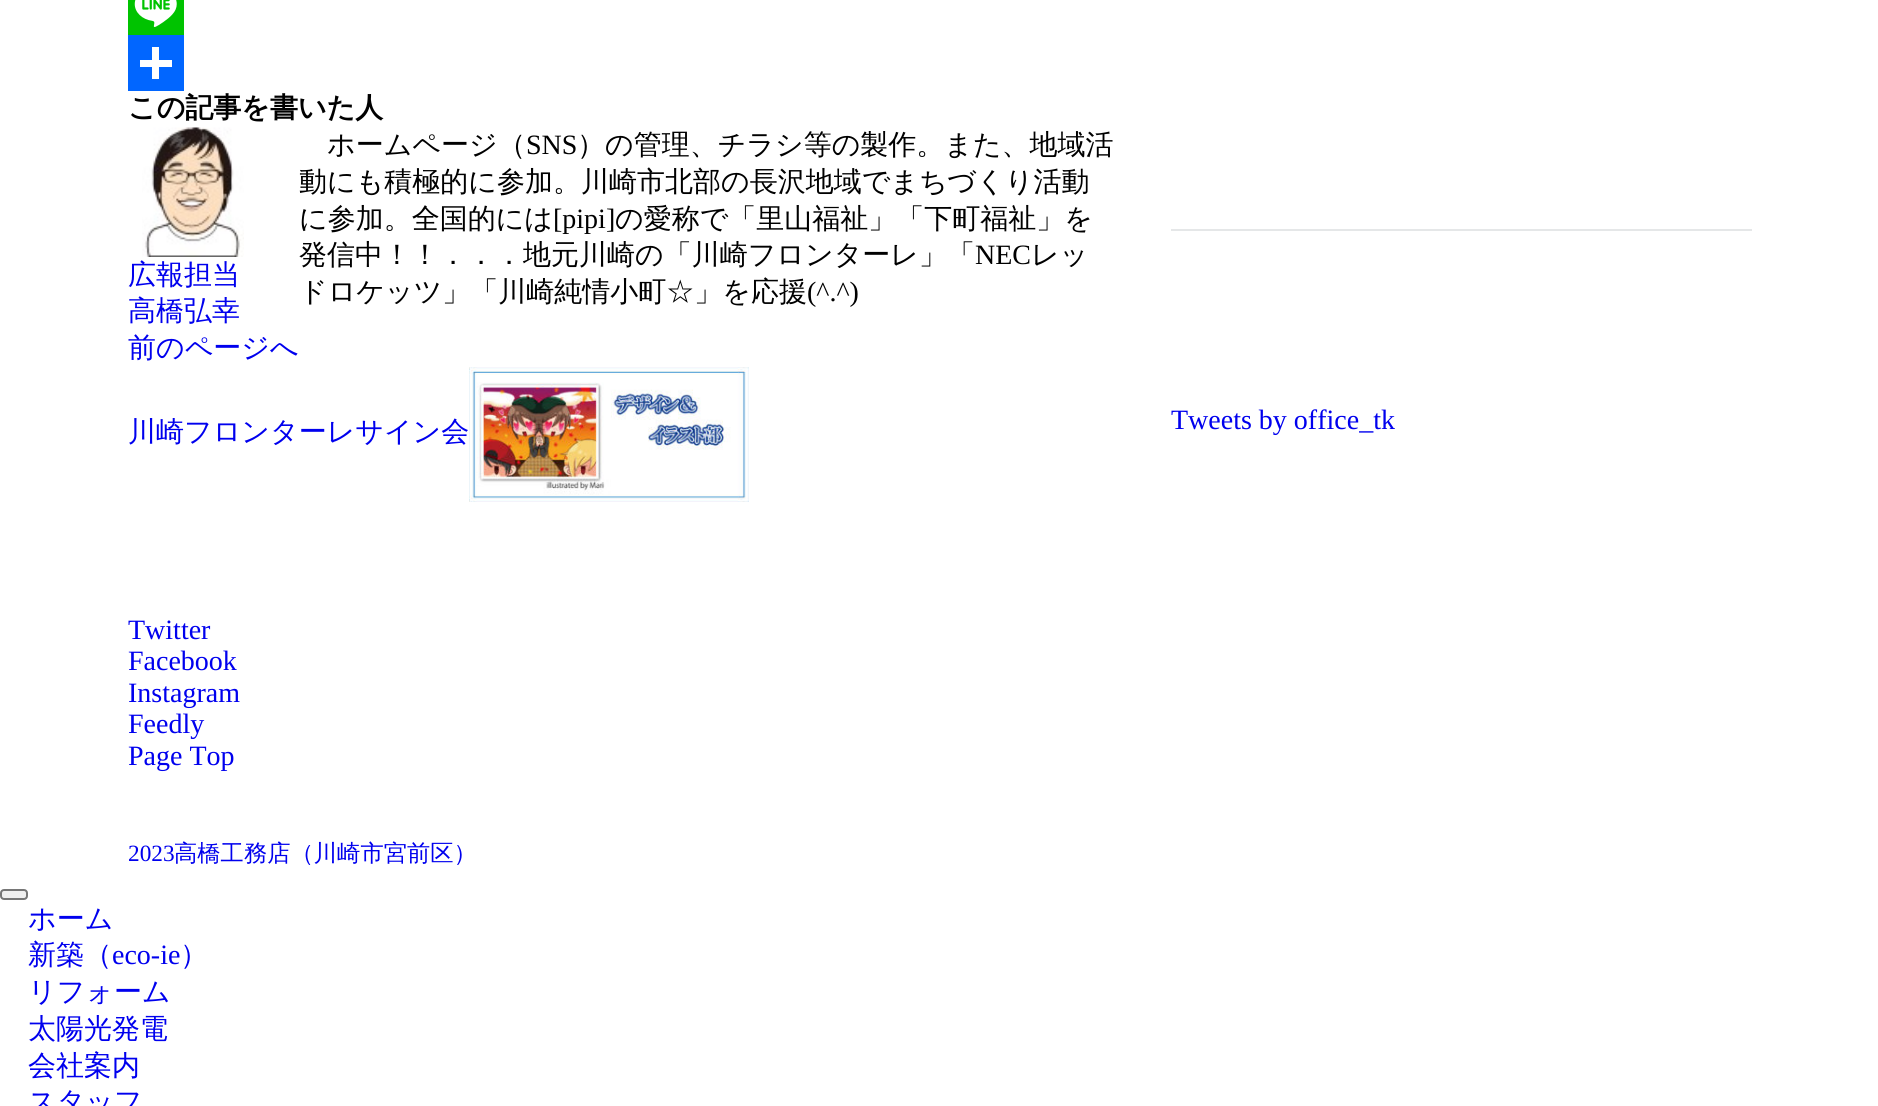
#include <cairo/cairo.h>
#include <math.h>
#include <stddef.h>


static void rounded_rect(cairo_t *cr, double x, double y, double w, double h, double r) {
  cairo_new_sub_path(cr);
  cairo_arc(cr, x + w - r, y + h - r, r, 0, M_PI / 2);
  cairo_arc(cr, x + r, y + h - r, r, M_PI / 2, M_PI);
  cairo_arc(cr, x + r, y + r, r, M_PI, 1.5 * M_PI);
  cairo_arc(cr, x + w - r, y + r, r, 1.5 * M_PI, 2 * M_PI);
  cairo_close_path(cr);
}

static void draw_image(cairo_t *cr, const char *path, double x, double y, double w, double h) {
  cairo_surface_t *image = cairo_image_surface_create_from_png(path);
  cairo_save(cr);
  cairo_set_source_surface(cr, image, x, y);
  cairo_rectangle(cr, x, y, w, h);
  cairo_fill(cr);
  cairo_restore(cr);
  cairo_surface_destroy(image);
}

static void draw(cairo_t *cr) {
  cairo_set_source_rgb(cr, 1, 1, 1);
  cairo_paint(cr);
  cairo_set_source_rgb(cr, 0, 195 / 255.0, 0);
  cairo_rectangle(cr, 128, 0, 56, 35);
  cairo_fill(cr);
  draw_image(cr, "images/1.png", 134, 0, 43, 27);
  cairo_set_source_rgb(cr, 1 / 255.0, 102 / 255.0, 1);
  cairo_rectangle(cr, 128, 35, 56, 56);
  cairo_fill(cr);
  cairo_set_source_rgb(cr, 1, 1, 1);
  cairo_rectangle(cr, 152, 47, 7, 32);
  cairo_fill(cr);
  cairo_rectangle(cr, 140, 60, 32, 7);
  cairo_fill(cr);
  draw_image(cr, "images/2.png", 142, 127, 102, 130);
  draw_image(cr, "images/3.png", 469, 367, 280, 135);
  cairo_set_source_rgb(cr, 229 / 255.0, 231 / 255.0, 232 / 255.0);
  cairo_rectangle(cr, 1171, 229, 581, 2);
  cairo_fill(cr);
  cairo_set_source_rgb(cr, 239 / 255.0, 239 / 255.0, 239 / 255.0);
  rounded_rect(cr, 1, 890, 26, 9, 3);
  cairo_fill_preserve(cr);
  cairo_set_source_rgb(cr, 118 / 255.0, 118 / 255.0, 118 / 255.0);
  cairo_stroke(cr);
  cairo_select_font_face(cr, "WenQuanYi Zen Hei", CAIRO_FONT_SLANT_NORMAL, CAIRO_FONT_WEIGHT_BOLD);
  cairo_set_font_size(cr, 28);
  cairo_set_source_rgb(cr, 0, 0, 0);
  cairo_move_to(cr, 128, 117);
  cairo_show_text(cr, "この記事を書いた人");
  cairo_select_font_face(cr, "WenQuanYi Zen Hei Medium", CAIRO_FONT_SLANT_NORMAL, CAIRO_FONT_WEIGHT_NORMAL);
  cairo_set_source_rgb(cr, 0, 0, 238 / 255.0);
  cairo_move_to(cr, 128, 284);
  cairo_show_text(cr, "広報担当");
  cairo_move_to(cr, 128, 320);
  cairo_show_text(cr, "高橋弘幸");
  cairo_set_source_rgb(cr, 0, 0, 0);
  cairo_move_to(cr, 327, 154);
  cairo_show_text(cr, "ホームページ（");
  cairo_select_font_face(cr, "Liberation Serif", CAIRO_FONT_SLANT_NORMAL, CAIRO_FONT_WEIGHT_NORMAL);
  cairo_move_to(cr, 526, 154);
  cairo_show_text(cr, "SNS");
  cairo_select_font_face(cr, "WenQuanYi Zen Hei Medium", CAIRO_FONT_SLANT_NORMAL, CAIRO_FONT_WEIGHT_NORMAL);
  cairo_move_to(cr, 577, 154);
  cairo_show_text(cr, "）の管理、チラシ等の製作。また、地域活");
  cairo_move_to(cr, 299, 191);
  cairo_show_text(cr, "動にも積極的に参加。川崎市北部の長沢地域でまちづくり活動");
  cairo_move_to(cr, 299, 228);
  cairo_show_text(cr, "に参加。全国的には");
  cairo_select_font_face(cr, "Liberation Serif", CAIRO_FONT_SLANT_NORMAL, CAIRO_FONT_WEIGHT_NORMAL);
  cairo_move_to(cr, 553, 228);
  cairo_show_text(cr, "[pipi]");
  cairo_select_font_face(cr, "WenQuanYi Zen Hei Medium", CAIRO_FONT_SLANT_NORMAL, CAIRO_FONT_WEIGHT_NORMAL);
  cairo_move_to(cr, 615, 228);
  cairo_show_text(cr, "の愛称で「里山福祉」「下町福祉」を");
  cairo_move_to(cr, 299, 264);
  cairo_show_text(cr, "発信中！！．．．地元川崎の「川崎フロンターレ」「");
  cairo_select_font_face(cr, "Liberation Serif", CAIRO_FONT_SLANT_NORMAL, CAIRO_FONT_WEIGHT_NORMAL);
  cairo_move_to(cr, 975, 264);
  cairo_show_text(cr, "NEC");
  cairo_select_font_face(cr, "WenQuanYi Zen Hei Medium", CAIRO_FONT_SLANT_NORMAL, CAIRO_FONT_WEIGHT_NORMAL);
  cairo_move_to(cr, 1031, 264);
  cairo_show_text(cr, "レッ");
  cairo_move_to(cr, 299, 301);
  cairo_show_text(cr, "ドロケッツ」「川崎純情小町☆」を応援");
  cairo_select_font_face(cr, "Liberation Serif", CAIRO_FONT_SLANT_NORMAL, CAIRO_FONT_WEIGHT_NORMAL);
  cairo_move_to(cr, 807, 301);
  cairo_show_text(cr, "(^.^)");
  cairo_select_font_face(cr, "WenQuanYi Zen Hei Medium", CAIRO_FONT_SLANT_NORMAL, CAIRO_FONT_WEIGHT_NORMAL);
  cairo_set_source_rgb(cr, 0, 0, 238 / 255.0);
  cairo_move_to(cr, 128, 357);
  cairo_show_text(cr, "前のページへ");
  cairo_move_to(cr, 128, 441);
  cairo_show_text(cr, "川崎フロンターレサイン会");
  cairo_select_font_face(cr, "Liberation Serif", CAIRO_FONT_SLANT_NORMAL, CAIRO_FONT_WEIGHT_NORMAL);
  cairo_move_to(cr, 1171, 429);
  cairo_show_text(cr, "Tweets by office_tk");
  cairo_move_to(cr, 128, 639);
  cairo_show_text(cr, "Twitter");
  cairo_move_to(cr, 128, 670);
  cairo_show_text(cr, "Facebook");
  cairo_move_to(cr, 128, 702);
  cairo_show_text(cr, "Instagram");
  cairo_move_to(cr, 128, 733);
  cairo_show_text(cr, "Feedly");
  cairo_move_to(cr, 128, 765);
  cairo_show_text(cr, "Page Top");
  cairo_set_font_size(cr, 23.3);
  cairo_move_to(cr, 128, 861);
  cairo_show_text(cr, "2023");
  cairo_select_font_face(cr, "WenQuanYi Zen Hei Medium", CAIRO_FONT_SLANT_NORMAL, CAIRO_FONT_WEIGHT_NORMAL);
  cairo_move_to(cr, 174, 861);
  cairo_show_text(cr, "高橋工務店（川崎市宮前区）");
  cairo_set_font_size(cr, 28);
  cairo_move_to(cr, 28, 928);
  cairo_show_text(cr, "ホーム");
  cairo_move_to(cr, 28, 964);
  cairo_show_text(cr, "新築（");
  cairo_select_font_face(cr, "Liberation Serif", CAIRO_FONT_SLANT_NORMAL, CAIRO_FONT_WEIGHT_NORMAL);
  cairo_move_to(cr, 112, 964);
  cairo_show_text(cr, "eco-ie");
  cairo_select_font_face(cr, "WenQuanYi Zen Hei Medium", CAIRO_FONT_SLANT_NORMAL, CAIRO_FONT_WEIGHT_NORMAL);
  cairo_move_to(cr, 180, 964);
  cairo_show_text(cr, "）");
  cairo_move_to(cr, 28, 1001);
  cairo_show_text(cr, "リフォーム");
  cairo_move_to(cr, 28, 1038);
  cairo_show_text(cr, "太陽光発電");
  cairo_move_to(cr, 28, 1075);
  cairo_show_text(cr, "会社案内");
  cairo_move_to(cr, 28, 1111);
  cairo_show_text(cr, "スタッフ");
}

int main(void) {
  cairo_surface_t *surface = cairo_image_surface_create(CAIRO_FORMAT_RGB24, 1878, 1106);
  cairo_t *cr = cairo_create(surface);
  cairo_font_options_t *options = cairo_font_options_create();
  cairo_font_options_set_hint_metrics(options, CAIRO_HINT_METRICS_OFF);
  cairo_font_options_set_hint_style(options, CAIRO_HINT_STYLE_NONE);
  cairo_set_font_options(cr, options);
  cairo_set_miter_limit(cr, 4);
  draw(cr);
  cairo_surface_write_to_png(surface, "out.png");
  cairo_font_options_destroy(options);
  cairo_destroy(cr);
  cairo_surface_destroy(surface);
  return 0;
}
